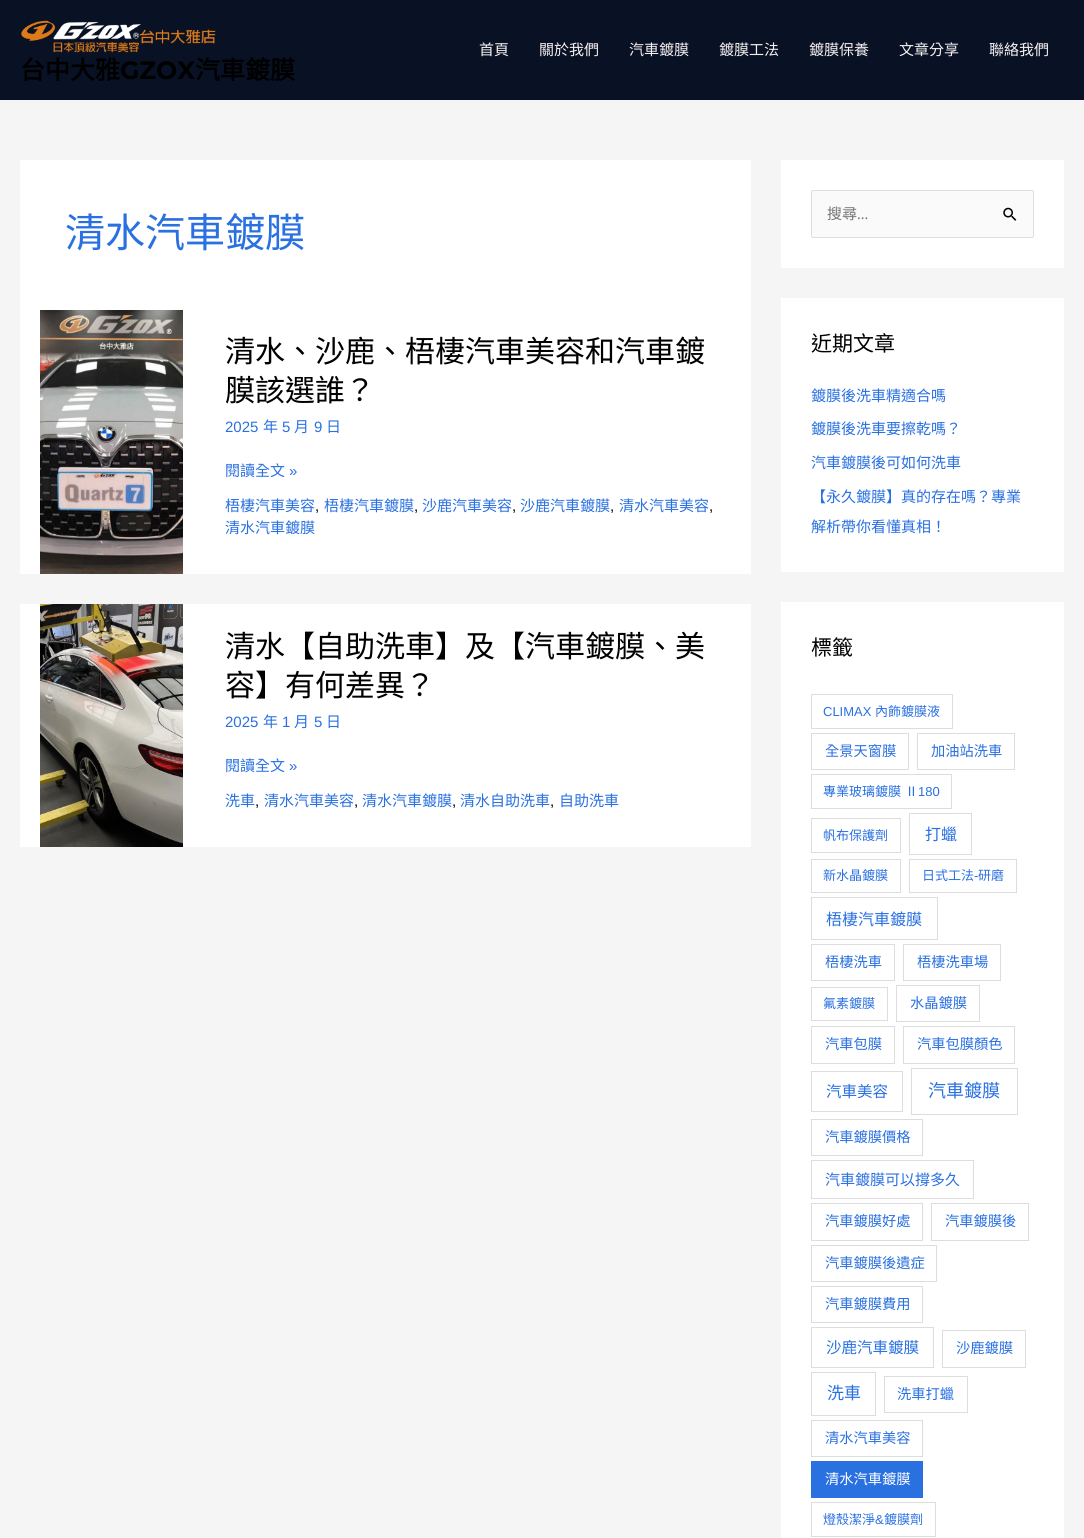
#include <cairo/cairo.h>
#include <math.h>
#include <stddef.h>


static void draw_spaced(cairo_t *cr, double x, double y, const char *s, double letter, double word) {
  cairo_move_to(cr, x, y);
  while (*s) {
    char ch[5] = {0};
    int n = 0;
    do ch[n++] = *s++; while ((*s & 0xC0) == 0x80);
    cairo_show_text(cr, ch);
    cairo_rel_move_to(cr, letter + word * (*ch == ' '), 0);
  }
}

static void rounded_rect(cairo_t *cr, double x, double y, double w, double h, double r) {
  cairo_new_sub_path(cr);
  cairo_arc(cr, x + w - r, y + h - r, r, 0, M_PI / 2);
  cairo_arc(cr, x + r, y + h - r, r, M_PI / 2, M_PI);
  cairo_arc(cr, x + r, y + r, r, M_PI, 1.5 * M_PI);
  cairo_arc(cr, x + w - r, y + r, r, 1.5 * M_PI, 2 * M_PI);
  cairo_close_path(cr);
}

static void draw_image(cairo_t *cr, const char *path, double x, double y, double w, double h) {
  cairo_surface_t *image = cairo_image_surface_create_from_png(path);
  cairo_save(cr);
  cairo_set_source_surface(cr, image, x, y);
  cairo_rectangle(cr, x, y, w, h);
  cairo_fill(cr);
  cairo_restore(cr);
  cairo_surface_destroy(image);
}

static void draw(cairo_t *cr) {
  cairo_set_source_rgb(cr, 245 / 255.0, 245 / 255.0, 245 / 255.0);
  cairo_paint(cr);
  cairo_set_source_rgb(cr, 9 / 255.0, 17 / 255.0, 36 / 255.0);
  cairo_rectangle(cr, 0, 0, 1084, 100);
  cairo_fill(cr);
  draw_image(cr, "images/1.png", 21, 20, 195, 33);
  cairo_set_source_rgb(cr, 1, 1, 1);
  cairo_rectangle(cr, 20, 160, 731, 414);
  cairo_fill(cr);
  draw_image(cr, "images/2.png", 40, 310, 143, 264);
  cairo_rectangle(cr, 20, 604, 731, 243);
  cairo_fill(cr);
  draw_image(cr, "images/3.png", 40, 604, 143, 243);
  cairo_rectangle(cr, 781, 160, 283, 108);
  cairo_fill(cr);
  cairo_set_source_rgb(cr, 250 / 255.0, 250 / 255.0, 250 / 255.0);
  rounded_rect(cr, 811.5, 190.5, 222, 47, 1.5);
  cairo_fill_preserve(cr);
  cairo_set_source_rgb(cr, 221 / 255.0, 221 / 255.0, 221 / 255.0);
  cairo_set_line_width(cr, 1);
  cairo_stroke(cr);
  draw_image(cr, "images/4.png", 1003, 207, 14, 14);
  cairo_set_source_rgb(cr, 1, 1, 1);
  cairo_rectangle(cr, 781, 298, 283, 274);
  cairo_fill(cr);
  cairo_rectangle(cr, 781, 602, 283, 936);
  cairo_fill(cr);
  cairo_rectangle(cr, 811.5, 694.5, 141, 34);
  cairo_set_source_rgb(cr, 221 / 255.0, 221 / 255.0, 221 / 255.0);
  cairo_stroke(cr);
  cairo_rectangle(cr, 811.5, 733.5, 97, 36);
  cairo_stroke(cr);
  cairo_rectangle(cr, 917.5, 733.5, 97, 36);
  cairo_stroke(cr);
  cairo_rectangle(cr, 811.5, 774.5, 140, 34);
  cairo_stroke(cr);
  cairo_rectangle(cr, 811.5, 818.5, 89, 34);
  cairo_stroke(cr);
  cairo_rectangle(cr, 909.5, 813.5, 62, 41);
  cairo_stroke(cr);
  cairo_rectangle(cr, 811.5, 859.5, 89, 33);
  cairo_stroke(cr);
  cairo_rectangle(cr, 909.5, 859.5, 107, 33);
  cairo_stroke(cr);
  cairo_rectangle(cr, 811.5, 897.5, 126, 42);
  cairo_stroke(cr);
  cairo_rectangle(cr, 811.5, 944.5, 83, 36);
  cairo_stroke(cr);
  cairo_rectangle(cr, 903.5, 944.5, 97, 36);
  cairo_stroke(cr);
  cairo_rectangle(cr, 811.5, 987.5, 76, 33);
  cairo_stroke(cr);
  cairo_rectangle(cr, 896.5, 985.5, 83, 36);
  cairo_stroke(cr);
  cairo_rectangle(cr, 811.5, 1026.5, 83, 37);
  cairo_stroke(cr);
  cairo_rectangle(cr, 903.5, 1026.5, 111, 37);
  cairo_stroke(cr);
  cairo_rectangle(cr, 811.5, 1071.5, 91, 40);
  cairo_stroke(cr);
  cairo_rectangle(cr, 911.5, 1068.5, 106, 46);
  cairo_stroke(cr);
  cairo_rectangle(cr, 811.5, 1119.5, 111, 36);
  cairo_stroke(cr);
  cairo_rectangle(cr, 811.5, 1160.5, 162, 38);
  cairo_stroke(cr);
  cairo_rectangle(cr, 811.5, 1203.5, 111, 37);
  cairo_stroke(cr);
  cairo_rectangle(cr, 931.5, 1203.5, 97, 37);
  cairo_stroke(cr);
  cairo_rectangle(cr, 811.5, 1245.5, 125, 36);
  cairo_stroke(cr);
  cairo_rectangle(cr, 811.5, 1286.5, 111, 36);
  cairo_stroke(cr);
  cairo_rectangle(cr, 811.5, 1327.5, 122, 40);
  cairo_stroke(cr);
  cairo_rectangle(cr, 942.5, 1330.5, 83, 37);
  cairo_stroke(cr);
  cairo_rectangle(cr, 811.5, 1372.5, 64, 43);
  cairo_stroke(cr);
  cairo_rectangle(cr, 884.5, 1376.5, 83, 36);
  cairo_stroke(cr);
  cairo_rectangle(cr, 811.5, 1420.5, 111, 36);
  cairo_stroke(cr);
  cairo_set_source_rgb(cr, 41 / 255.0, 112 / 255.0, 225 / 255.0);
  cairo_rectangle(cr, 811, 1461, 112, 37);
  cairo_fill(cr);
  cairo_rectangle(cr, 811.5, 1502.5, 124, 34);
  cairo_set_source_rgb(cr, 221 / 255.0, 221 / 255.0, 221 / 255.0);
  cairo_stroke(cr);
  cairo_select_font_face(cr, "Noto Sans CJK TC", CAIRO_FONT_SLANT_NORMAL, CAIRO_FONT_WEIGHT_NORMAL);
  cairo_set_font_size(cr, 15);
  cairo_set_source_rgb(cr, 247 / 255.0, 242 / 255.0, 242 / 255.0);
  cairo_move_to(cr, 479, 55);
  cairo_show_text(cr, "首頁");
  cairo_move_to(cr, 539, 55);
  cairo_show_text(cr, "關於我們");
  cairo_move_to(cr, 629, 55);
  cairo_show_text(cr, "汽車鍍膜");
  cairo_move_to(cr, 719, 55);
  cairo_show_text(cr, "鍍膜工法");
  cairo_move_to(cr, 809, 55);
  cairo_show_text(cr, "鍍膜保養");
  cairo_move_to(cr, 899, 55);
  cairo_show_text(cr, "文章分享");
  cairo_move_to(cr, 989, 55);
  cairo_show_text(cr, "聯絡我們");
  cairo_select_font_face(cr, "Noto Sans CJK TC", CAIRO_FONT_SLANT_NORMAL, CAIRO_FONT_WEIGHT_BOLD);
  cairo_set_font_size(cr, 25);
  cairo_set_source_rgb(cr, 0, 0, 0);
  cairo_move_to(cr, 20, 79);
  cairo_show_text(cr, "台中大雅");
  cairo_select_font_face(cr, "Montserrat Thin", CAIRO_FONT_SLANT_NORMAL, CAIRO_FONT_WEIGHT_NORMAL);
  cairo_move_to(cr, 120, 79);
  cairo_show_text(cr, "GZOX");
  cairo_select_font_face(cr, "Noto Sans CJK TC", CAIRO_FONT_SLANT_NORMAL, CAIRO_FONT_WEIGHT_BOLD);
  cairo_move_to(cr, 195, 79);
  cairo_show_text(cr, "汽車鍍膜");
  cairo_select_font_face(cr, "Noto Sans CJK TC", CAIRO_FONT_SLANT_NORMAL, CAIRO_FONT_WEIGHT_NORMAL);
  cairo_set_font_size(cr, 40);
  cairo_set_source_rgb(cr, 41 / 255.0, 112 / 255.0, 225 / 255.0);
  cairo_move_to(cr, 65, 247);
  cairo_show_text(cr, "清水汽車鍍膜");
  cairo_set_font_size(cr, 30);
  cairo_set_source_rgb(cr, 0, 0, 0);
  cairo_move_to(cr, 225, 362);
  cairo_show_text(cr, "清水、沙鹿、梧棲汽車美容和汽車鍍");
  cairo_move_to(cr, 225, 401);
  cairo_show_text(cr, "膜該選誰？");
  cairo_select_font_face(cr, "Liberation Sans", CAIRO_FONT_SLANT_NORMAL, CAIRO_FONT_WEIGHT_NORMAL);
  cairo_set_font_size(cr, 15);
  cairo_set_source_rgb(cr, 41 / 255.0, 112 / 255.0, 225 / 255.0);
  cairo_move_to(cr, 225, 432);
  cairo_show_text(cr, "2025");
  cairo_select_font_face(cr, "Noto Sans CJK TC", CAIRO_FONT_SLANT_NORMAL, CAIRO_FONT_WEIGHT_NORMAL);
  cairo_move_to(cr, 263, 432);
  cairo_show_text(cr, "年");
  cairo_select_font_face(cr, "Liberation Sans", CAIRO_FONT_SLANT_NORMAL, CAIRO_FONT_WEIGHT_NORMAL);
  cairo_move_to(cr, 282, 432);
  cairo_show_text(cr, "5");
  cairo_select_font_face(cr, "Noto Sans CJK TC", CAIRO_FONT_SLANT_NORMAL, CAIRO_FONT_WEIGHT_NORMAL);
  cairo_move_to(cr, 294, 432);
  cairo_show_text(cr, "月");
  cairo_select_font_face(cr, "Liberation Sans", CAIRO_FONT_SLANT_NORMAL, CAIRO_FONT_WEIGHT_NORMAL);
  cairo_move_to(cr, 314, 432);
  cairo_show_text(cr, "9");
  cairo_select_font_face(cr, "Noto Sans CJK TC", CAIRO_FONT_SLANT_NORMAL, CAIRO_FONT_WEIGHT_NORMAL);
  cairo_move_to(cr, 326, 432);
  cairo_show_text(cr, "日");
  cairo_move_to(cr, 225, 476);
  cairo_show_text(cr, "閱讀全文");
  cairo_select_font_face(cr, "Liberation Sans", CAIRO_FONT_SLANT_NORMAL, CAIRO_FONT_WEIGHT_NORMAL);
  cairo_move_to(cr, 289, 476);
  cairo_show_text(cr, "»");
  cairo_select_font_face(cr, "Noto Sans CJK TC", CAIRO_FONT_SLANT_NORMAL, CAIRO_FONT_WEIGHT_NORMAL);
  cairo_move_to(cr, 225, 511);
  cairo_show_text(cr, "梧棲汽車美容");
  cairo_select_font_face(cr, "Liberation Sans", CAIRO_FONT_SLANT_NORMAL, CAIRO_FONT_WEIGHT_NORMAL);
  cairo_set_source_rgb(cr, 0, 0, 0);
  cairo_move_to(cr, 315, 511);
  cairo_show_text(cr, ",");
  cairo_select_font_face(cr, "Noto Sans CJK TC", CAIRO_FONT_SLANT_NORMAL, CAIRO_FONT_WEIGHT_NORMAL);
  cairo_set_source_rgb(cr, 41 / 255.0, 112 / 255.0, 225 / 255.0);
  cairo_move_to(cr, 324, 511);
  cairo_show_text(cr, "梧棲汽車鍍膜");
  cairo_select_font_face(cr, "Liberation Sans", CAIRO_FONT_SLANT_NORMAL, CAIRO_FONT_WEIGHT_NORMAL);
  cairo_set_source_rgb(cr, 0, 0, 0);
  cairo_move_to(cr, 414, 511);
  cairo_show_text(cr, ",");
  cairo_select_font_face(cr, "Noto Sans CJK TC", CAIRO_FONT_SLANT_NORMAL, CAIRO_FONT_WEIGHT_NORMAL);
  cairo_set_source_rgb(cr, 41 / 255.0, 112 / 255.0, 225 / 255.0);
  cairo_move_to(cr, 422, 511);
  cairo_show_text(cr, "沙鹿汽車美容");
  cairo_select_font_face(cr, "Liberation Sans", CAIRO_FONT_SLANT_NORMAL, CAIRO_FONT_WEIGHT_NORMAL);
  cairo_set_source_rgb(cr, 0, 0, 0);
  cairo_move_to(cr, 512, 511);
  cairo_show_text(cr, ",");
  cairo_select_font_face(cr, "Noto Sans CJK TC", CAIRO_FONT_SLANT_NORMAL, CAIRO_FONT_WEIGHT_NORMAL);
  cairo_set_source_rgb(cr, 41 / 255.0, 112 / 255.0, 225 / 255.0);
  cairo_move_to(cr, 520, 511);
  cairo_show_text(cr, "沙鹿汽車鍍膜");
  cairo_select_font_face(cr, "Liberation Sans", CAIRO_FONT_SLANT_NORMAL, CAIRO_FONT_WEIGHT_NORMAL);
  cairo_set_source_rgb(cr, 0, 0, 0);
  cairo_move_to(cr, 610, 511);
  cairo_show_text(cr, ",");
  cairo_select_font_face(cr, "Noto Sans CJK TC", CAIRO_FONT_SLANT_NORMAL, CAIRO_FONT_WEIGHT_NORMAL);
  cairo_set_source_rgb(cr, 41 / 255.0, 112 / 255.0, 225 / 255.0);
  cairo_move_to(cr, 619, 511);
  cairo_show_text(cr, "清水汽車美容");
  cairo_select_font_face(cr, "Liberation Sans", CAIRO_FONT_SLANT_NORMAL, CAIRO_FONT_WEIGHT_NORMAL);
  cairo_set_source_rgb(cr, 0, 0, 0);
  cairo_move_to(cr, 709, 511);
  cairo_show_text(cr, ",");
  cairo_select_font_face(cr, "Noto Sans CJK TC", CAIRO_FONT_SLANT_NORMAL, CAIRO_FONT_WEIGHT_NORMAL);
  cairo_set_source_rgb(cr, 41 / 255.0, 112 / 255.0, 225 / 255.0);
  cairo_move_to(cr, 225, 533);
  cairo_show_text(cr, "清水汽車鍍膜");
  cairo_set_font_size(cr, 30);
  cairo_set_source_rgb(cr, 0, 0, 0);
  cairo_move_to(cr, 225, 657);
  cairo_show_text(cr, "清水【自助洗車】及【汽車鍍膜、美");
  cairo_move_to(cr, 225, 696);
  cairo_show_text(cr, "容】有何差異？");
  cairo_select_font_face(cr, "Liberation Sans", CAIRO_FONT_SLANT_NORMAL, CAIRO_FONT_WEIGHT_NORMAL);
  cairo_set_font_size(cr, 15);
  cairo_set_source_rgb(cr, 41 / 255.0, 112 / 255.0, 225 / 255.0);
  cairo_move_to(cr, 225, 727);
  cairo_show_text(cr, "2025");
  cairo_select_font_face(cr, "Noto Sans CJK TC", CAIRO_FONT_SLANT_NORMAL, CAIRO_FONT_WEIGHT_NORMAL);
  cairo_move_to(cr, 263, 727);
  cairo_show_text(cr, "年");
  cairo_select_font_face(cr, "Liberation Sans", CAIRO_FONT_SLANT_NORMAL, CAIRO_FONT_WEIGHT_NORMAL);
  cairo_move_to(cr, 282, 727);
  cairo_show_text(cr, "1");
  cairo_select_font_face(cr, "Noto Sans CJK TC", CAIRO_FONT_SLANT_NORMAL, CAIRO_FONT_WEIGHT_NORMAL);
  cairo_move_to(cr, 294, 727);
  cairo_show_text(cr, "月");
  cairo_select_font_face(cr, "Liberation Sans", CAIRO_FONT_SLANT_NORMAL, CAIRO_FONT_WEIGHT_NORMAL);
  cairo_move_to(cr, 314, 727);
  cairo_show_text(cr, "5");
  cairo_select_font_face(cr, "Noto Sans CJK TC", CAIRO_FONT_SLANT_NORMAL, CAIRO_FONT_WEIGHT_NORMAL);
  cairo_move_to(cr, 326, 727);
  cairo_show_text(cr, "日");
  cairo_move_to(cr, 225, 771);
  cairo_show_text(cr, "閱讀全文");
  cairo_select_font_face(cr, "Liberation Sans", CAIRO_FONT_SLANT_NORMAL, CAIRO_FONT_WEIGHT_NORMAL);
  cairo_move_to(cr, 289, 771);
  cairo_show_text(cr, "»");
  cairo_select_font_face(cr, "Noto Sans CJK TC", CAIRO_FONT_SLANT_NORMAL, CAIRO_FONT_WEIGHT_NORMAL);
  cairo_move_to(cr, 225, 806);
  cairo_show_text(cr, "洗車");
  cairo_select_font_face(cr, "Liberation Sans", CAIRO_FONT_SLANT_NORMAL, CAIRO_FONT_WEIGHT_NORMAL);
  cairo_set_source_rgb(cr, 0, 0, 0);
  cairo_move_to(cr, 255, 806);
  cairo_show_text(cr, ",");
  cairo_select_font_face(cr, "Noto Sans CJK TC", CAIRO_FONT_SLANT_NORMAL, CAIRO_FONT_WEIGHT_NORMAL);
  cairo_set_source_rgb(cr, 41 / 255.0, 112 / 255.0, 225 / 255.0);
  cairo_move_to(cr, 264, 806);
  cairo_show_text(cr, "清水汽車美容");
  cairo_select_font_face(cr, "Liberation Sans", CAIRO_FONT_SLANT_NORMAL, CAIRO_FONT_WEIGHT_NORMAL);
  cairo_set_source_rgb(cr, 0, 0, 0);
  cairo_move_to(cr, 354, 806);
  cairo_show_text(cr, ",");
  cairo_select_font_face(cr, "Noto Sans CJK TC", CAIRO_FONT_SLANT_NORMAL, CAIRO_FONT_WEIGHT_NORMAL);
  cairo_set_source_rgb(cr, 41 / 255.0, 112 / 255.0, 225 / 255.0);
  cairo_move_to(cr, 362, 806);
  cairo_show_text(cr, "清水汽車鍍膜");
  cairo_select_font_face(cr, "Liberation Sans", CAIRO_FONT_SLANT_NORMAL, CAIRO_FONT_WEIGHT_NORMAL);
  cairo_set_source_rgb(cr, 0, 0, 0);
  cairo_move_to(cr, 452, 806);
  cairo_show_text(cr, ",");
  cairo_select_font_face(cr, "Noto Sans CJK TC", CAIRO_FONT_SLANT_NORMAL, CAIRO_FONT_WEIGHT_NORMAL);
  cairo_set_source_rgb(cr, 41 / 255.0, 112 / 255.0, 225 / 255.0);
  cairo_move_to(cr, 460, 806);
  cairo_show_text(cr, "清水自助洗車");
  cairo_select_font_face(cr, "Liberation Sans", CAIRO_FONT_SLANT_NORMAL, CAIRO_FONT_WEIGHT_NORMAL);
  cairo_set_source_rgb(cr, 0, 0, 0);
  cairo_move_to(cr, 550, 806);
  cairo_show_text(cr, ",");
  cairo_select_font_face(cr, "Noto Sans CJK TC", CAIRO_FONT_SLANT_NORMAL, CAIRO_FONT_WEIGHT_NORMAL);
  cairo_set_source_rgb(cr, 41 / 255.0, 112 / 255.0, 225 / 255.0);
  cairo_move_to(cr, 559, 806);
  cairo_show_text(cr, "自助洗車");
  cairo_set_source_rgb(cr, 117 / 255.0, 117 / 255.0, 117 / 255.0);
  cairo_move_to(cr, 827, 219);
  cairo_show_text(cr, "搜尋");
  cairo_select_font_face(cr, "Source Sans Pro", CAIRO_FONT_SLANT_NORMAL, CAIRO_FONT_WEIGHT_NORMAL);
  cairo_move_to(cr, 857, 219);
  cairo_show_text(cr, "...");
  cairo_select_font_face(cr, "Noto Sans CJK TC", CAIRO_FONT_SLANT_NORMAL, CAIRO_FONT_WEIGHT_NORMAL);
  cairo_set_font_size(cr, 21);
  cairo_set_source_rgb(cr, 0, 0, 0);
  cairo_move_to(cr, 811, 351);
  cairo_show_text(cr, "近期文章");
  cairo_set_font_size(cr, 15);
  cairo_set_source_rgb(cr, 41 / 255.0, 112 / 255.0, 225 / 255.0);
  cairo_move_to(cr, 811, 401);
  cairo_show_text(cr, "鍍膜後洗車精適合嗎");
  cairo_move_to(cr, 811, 434);
  cairo_show_text(cr, "鍍膜後洗車要擦乾嗎？");
  cairo_move_to(cr, 811, 468);
  cairo_show_text(cr, "汽車鍍膜後可如何洗車");
  cairo_move_to(cr, 811, 502);
  cairo_show_text(cr, "【永久鍍膜】真的存在嗎？專業");
  cairo_move_to(cr, 811, 532);
  cairo_show_text(cr, "解析帶你看懂真相！");
  cairo_set_font_size(cr, 21);
  cairo_set_source_rgb(cr, 0, 0, 0);
  cairo_move_to(cr, 811, 655);
  cairo_show_text(cr, "標籤");
  cairo_select_font_face(cr, "Liberation Sans", CAIRO_FONT_SLANT_NORMAL, CAIRO_FONT_WEIGHT_NORMAL);
  cairo_set_font_size(cr, 13);
  cairo_set_source_rgb(cr, 41 / 255.0, 112 / 255.0, 225 / 255.0);
  cairo_move_to(cr, 823, 716);
  cairo_show_text(cr, "CLIMAX");
  cairo_select_font_face(cr, "Noto Sans CJK TC", CAIRO_FONT_SLANT_NORMAL, CAIRO_FONT_WEIGHT_NORMAL);
  cairo_move_to(cr, 875, 716);
  cairo_show_text(cr, "內飾鍍膜液");
  cairo_set_font_size(cr, 14.25);
  cairo_move_to(cr, 825, 756);
  cairo_show_text(cr, "全景天窗膜");
  cairo_move_to(cr, 931, 756);
  cairo_show_text(cr, "加油站洗車");
  cairo_set_font_size(cr, 13);
  draw_spaced(cr, 823, 796, "專業玻璃鍍膜 Ⅱ", 0, 1);
  cairo_select_font_face(cr, "Liberation Sans", CAIRO_FONT_SLANT_NORMAL, CAIRO_FONT_WEIGHT_NORMAL);
  cairo_move_to(cr, 918, 796);
  cairo_show_text(cr, "180");
  cairo_select_font_face(cr, "Noto Sans CJK TC", CAIRO_FONT_SLANT_NORMAL, CAIRO_FONT_WEIGHT_NORMAL);
  cairo_move_to(cr, 823, 840);
  cairo_show_text(cr, "帆布保護劑");
  cairo_set_font_size(cr, 16);
  cairo_move_to(cr, 925, 840);
  cairo_show_text(cr, "打蠟");
  cairo_set_font_size(cr, 13);
  cairo_move_to(cr, 823, 880);
  cairo_show_text(cr, "新水晶鍍膜");
  cairo_move_to(cr, 922, 880);
  cairo_show_text(cr, "日式工法");
  cairo_select_font_face(cr, "Liberation Sans", CAIRO_FONT_SLANT_NORMAL, CAIRO_FONT_WEIGHT_NORMAL);
  cairo_move_to(cr, 974, 880);
  cairo_show_text(cr, "-");
  cairo_select_font_face(cr, "Noto Sans CJK TC", CAIRO_FONT_SLANT_NORMAL, CAIRO_FONT_WEIGHT_NORMAL);
  cairo_move_to(cr, 978, 880);
  cairo_show_text(cr, "研磨");
  cairo_set_font_size(cr, 16);
  cairo_move_to(cr, 826, 925);
  cairo_show_text(cr, "梧棲汽車鍍膜");
  cairo_set_font_size(cr, 14.25);
  cairo_move_to(cr, 825, 967);
  cairo_show_text(cr, "梧棲洗車");
  cairo_move_to(cr, 917, 967);
  cairo_show_text(cr, "梧棲洗車場");
  cairo_set_font_size(cr, 13);
  cairo_move_to(cr, 823, 1008);
  cairo_show_text(cr, "氟素鍍膜");
  cairo_set_font_size(cr, 14.25);
  cairo_move_to(cr, 910, 1008);
  cairo_show_text(cr, "水晶鍍膜");
  cairo_move_to(cr, 825, 1049);
  cairo_show_text(cr, "汽車包膜");
  cairo_move_to(cr, 917, 1049);
  cairo_show_text(cr, "汽車包膜顏色");
  cairo_set_font_size(cr, 15.5);
  cairo_move_to(cr, 826, 1097);
  cairo_show_text(cr, "汽車美容");
  cairo_set_font_size(cr, 18);
  cairo_move_to(cr, 928, 1097);
  cairo_show_text(cr, "汽車鍍膜");
  cairo_set_font_size(cr, 14.25);
  cairo_move_to(cr, 825, 1142);
  cairo_show_text(cr, "汽車鍍膜價格");
  cairo_set_font_size(cr, 15);
  cairo_move_to(cr, 825, 1185);
  cairo_show_text(cr, "汽車鍍膜可以撐多久");
  cairo_set_font_size(cr, 14.25);
  cairo_move_to(cr, 825, 1226);
  cairo_show_text(cr, "汽車鍍膜好處");
  cairo_move_to(cr, 945, 1226);
  cairo_show_text(cr, "汽車鍍膜後");
  cairo_move_to(cr, 825, 1268);
  cairo_show_text(cr, "汽車鍍膜後遺症");
  cairo_move_to(cr, 825, 1309);
  cairo_show_text(cr, "汽車鍍膜費用");
  cairo_set_font_size(cr, 15.5);
  cairo_move_to(cr, 826, 1353);
  cairo_show_text(cr, "沙鹿汽車鍍膜");
  cairo_set_font_size(cr, 14.25);
  cairo_move_to(cr, 956, 1353);
  cairo_show_text(cr, "沙鹿鍍膜");
  cairo_set_font_size(cr, 17);
  cairo_move_to(cr, 827, 1399);
  cairo_show_text(cr, "洗車");
  cairo_set_font_size(cr, 14.25);
  cairo_move_to(cr, 897, 1399);
  cairo_show_text(cr, "洗車打蠟");
  cairo_move_to(cr, 825, 1443);
  cairo_show_text(cr, "清水汽車美容");
  cairo_set_source_rgb(cr, 1, 1, 1);
  cairo_move_to(cr, 825, 1484);
  cairo_show_text(cr, "清水汽車鍍膜");
  cairo_set_font_size(cr, 13);
  cairo_set_source_rgb(cr, 41 / 255.0, 112 / 255.0, 225 / 255.0);
  cairo_move_to(cr, 823, 1524);
  cairo_show_text(cr, "燈殼潔淨");
  cairo_select_font_face(cr, "Liberation Sans", CAIRO_FONT_SLANT_NORMAL, CAIRO_FONT_WEIGHT_NORMAL);
  cairo_move_to(cr, 875, 1524);
  cairo_show_text(cr, "&");
  cairo_select_font_face(cr, "Noto Sans CJK TC", CAIRO_FONT_SLANT_NORMAL, CAIRO_FONT_WEIGHT_NORMAL);
  cairo_move_to(cr, 884, 1524);
  cairo_show_text(cr, "鍍膜劑");
}

int main(void) {
  cairo_surface_t *surface = cairo_image_surface_create(CAIRO_FORMAT_RGB24, 1084, 1538);
  cairo_t *cr = cairo_create(surface);
  cairo_font_options_t *options = cairo_font_options_create();
  cairo_font_options_set_hint_metrics(options, CAIRO_HINT_METRICS_OFF);
  cairo_font_options_set_hint_style(options, CAIRO_HINT_STYLE_NONE);
  cairo_set_font_options(cr, options);
  cairo_set_miter_limit(cr, 4);
  draw(cr);
  cairo_surface_write_to_png(surface, "out.png");
  cairo_font_options_destroy(options);
  cairo_destroy(cr);
  cairo_surface_destroy(surface);
  return 0;
}
